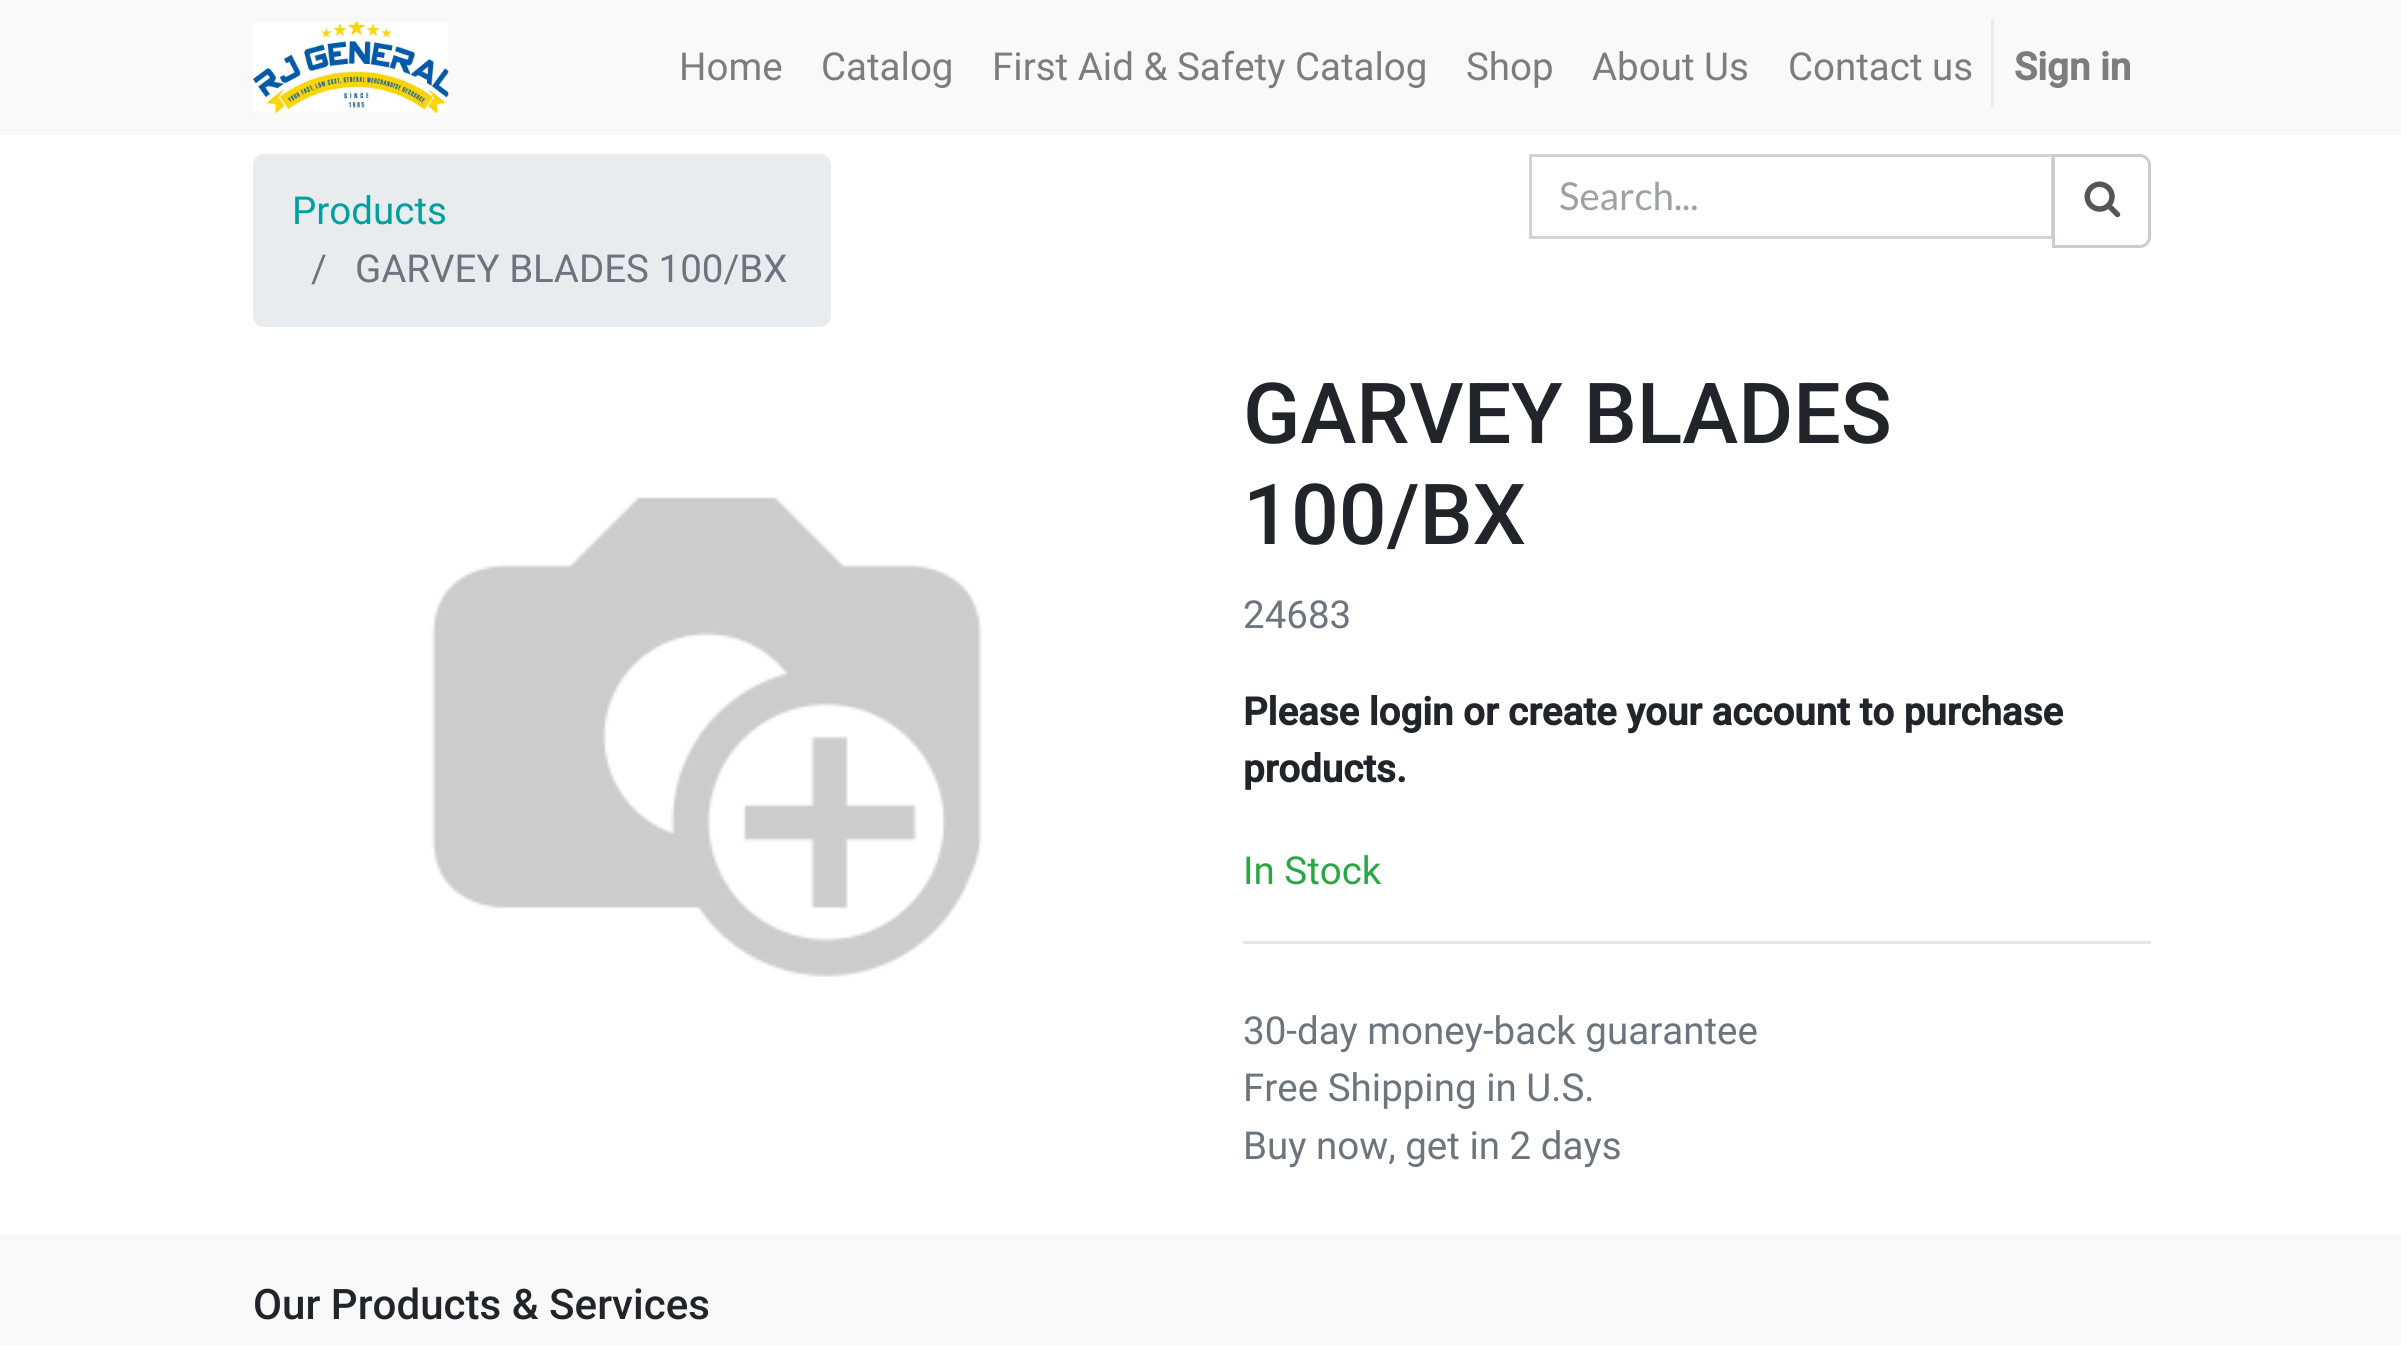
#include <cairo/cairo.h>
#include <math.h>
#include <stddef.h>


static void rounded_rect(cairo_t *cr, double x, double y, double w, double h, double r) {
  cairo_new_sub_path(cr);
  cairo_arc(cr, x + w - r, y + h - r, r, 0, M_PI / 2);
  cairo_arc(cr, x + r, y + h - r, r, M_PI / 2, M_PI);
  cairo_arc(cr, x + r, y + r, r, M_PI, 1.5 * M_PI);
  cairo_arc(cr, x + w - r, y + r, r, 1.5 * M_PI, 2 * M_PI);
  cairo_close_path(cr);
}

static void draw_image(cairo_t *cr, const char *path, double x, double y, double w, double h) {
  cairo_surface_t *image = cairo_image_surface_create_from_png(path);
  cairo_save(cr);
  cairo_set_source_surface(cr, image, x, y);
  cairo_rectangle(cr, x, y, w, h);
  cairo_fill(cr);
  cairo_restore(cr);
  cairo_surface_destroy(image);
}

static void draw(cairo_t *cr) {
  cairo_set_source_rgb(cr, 1, 1, 1);
  cairo_paint(cr);
  cairo_set_source_rgb(cr, 249 / 255.0, 249 / 255.0, 249 / 255.0);
  cairo_rectangle(cr, 0, 0, 2401, 135);
  cairo_fill(cr);
  draw_image(cr, "images/1.png", 253, 22, 196, 91);
  cairo_set_source_rgb(cr, 233 / 255.0, 236 / 255.0, 239 / 255.0);
  cairo_rectangle(cr, 1991, 19, 3, 88);
  cairo_fill(cr);
  rounded_rect(cr, 253, 154, 578, 173, 11);
  cairo_fill(cr);
  cairo_rectangle(cr, 1530.5, 155.5, 522, 82);
  cairo_set_source_rgb(cr, 206 / 255.0, 212 / 255.0, 218 / 255.0);
  cairo_set_line_width(cr, 3);
  cairo_stroke(cr);
  cairo_set_source_rgb(cr, 1, 1, 1);
  cairo_new_path(cr);
  cairo_move_to(cr, 2053.5, 155.5);
  cairo_line_to(cr, 2140, 155.5);
  cairo_curve_to(cr, 2145, 155.5, 2149.5, 160, 2149.5, 165);
  cairo_line_to(cr, 2149.5, 237);
  cairo_curve_to(cr, 2149.5, 242, 2145, 246.5, 2140, 246.5);
  cairo_line_to(cr, 2053.5, 246.5);
  cairo_close_path(cr);
  cairo_fill_preserve(cr);
  cairo_set_source_rgb(cr, 204 / 255.0, 204 / 255.0, 204 / 255.0);
  cairo_stroke(cr);
  draw_image(cr, "images/2.png", 2084, 181, 37, 37);
  draw_image(cr, "images/3.png", 431, 497, 552, 480);
  cairo_set_source_rgb(cr, 230 / 255.0, 230 / 255.0, 230 / 255.0);
  cairo_rectangle(cr, 1243, 941, 908, 3);
  cairo_fill(cr);
  cairo_set_source_rgb(cr, 249 / 255.0, 249 / 255.0, 249 / 255.0);
  cairo_rectangle(cr, 0, 1235, 2401, 111);
  cairo_fill(cr);
  cairo_select_font_face(cr, "Roboto", CAIRO_FONT_SLANT_NORMAL, CAIRO_FONT_WEIGHT_NORMAL);
  cairo_set_font_size(cr, 38.5);
  cairo_set_source_rgb(cr, 125 / 255.0, 125 / 255.0, 125 / 255.0);
  cairo_move_to(cr, 679, 80);
  cairo_show_text(cr, "Home");
  cairo_move_to(cr, 821, 80);
  cairo_show_text(cr, "Catalog");
  cairo_move_to(cr, 992, 80);
  cairo_show_text(cr, "First Aid & Safety Catalog");
  cairo_move_to(cr, 1466, 80);
  cairo_show_text(cr, "Shop");
  cairo_move_to(cr, 1592, 80);
  cairo_show_text(cr, "About Us");
  cairo_move_to(cr, 1788, 80);
  cairo_show_text(cr, "Contact us");
  cairo_select_font_face(cr, "Roboto", CAIRO_FONT_SLANT_NORMAL, CAIRO_FONT_WEIGHT_BOLD);
  cairo_move_to(cr, 2014, 80);
  cairo_show_text(cr, "Sign in");
  cairo_select_font_face(cr, "Roboto", CAIRO_FONT_SLANT_NORMAL, CAIRO_FONT_WEIGHT_NORMAL);
  cairo_set_source_rgb(cr, 0, 160 / 255.0, 157 / 255.0);
  cairo_move_to(cr, 292, 224);
  cairo_show_text(cr, "Products");
  cairo_set_source_rgb(cr, 108 / 255.0, 117 / 255.0, 125 / 255.0);
  cairo_move_to(cr, 311, 282);
  cairo_show_text(cr, "/");
  cairo_move_to(cr, 355, 282);
  cairo_show_text(cr, "GARVEY BLADES 100/BX");
  cairo_select_font_face(cr, "Lato", CAIRO_FONT_SLANT_NORMAL, CAIRO_FONT_WEIGHT_NORMAL);
  cairo_set_source_rgb(cr, 157 / 255.0, 161 / 255.0, 164 / 255.0);
  cairo_move_to(cr, 1559, 210);
  cairo_show_text(cr, "Search...");
  cairo_select_font_face(cr, "Roboto Medium", CAIRO_FONT_SLANT_NORMAL, CAIRO_FONT_WEIGHT_NORMAL);
  cairo_set_font_size(cr, 84.25);
  cairo_set_source_rgb(cr, 33 / 255.0, 37 / 255.0, 41 / 255.0);
  cairo_move_to(cr, 1243, 443);
  cairo_show_text(cr, "GARVEY BLADES");
  cairo_move_to(cr, 1243, 544);
  cairo_show_text(cr, "100/BX");
  cairo_select_font_face(cr, "Roboto", CAIRO_FONT_SLANT_NORMAL, CAIRO_FONT_WEIGHT_NORMAL);
  cairo_set_font_size(cr, 38.5);
  cairo_set_source_rgb(cr, 108 / 255.0, 117 / 255.0, 125 / 255.0);
  cairo_move_to(cr, 1243, 628);
  cairo_show_text(cr, "24683");
  cairo_select_font_face(cr, "Roboto", CAIRO_FONT_SLANT_NORMAL, CAIRO_FONT_WEIGHT_BOLD);
  cairo_set_source_rgb(cr, 33 / 255.0, 37 / 255.0, 41 / 255.0);
  cairo_move_to(cr, 1243, 725);
  cairo_show_text(cr, "Please login or create your account to purchase");
  cairo_move_to(cr, 1243, 782);
  cairo_show_text(cr, "products.");
  cairo_select_font_face(cr, "Roboto", CAIRO_FONT_SLANT_NORMAL, CAIRO_FONT_WEIGHT_NORMAL);
  cairo_set_source_rgb(cr, 40 / 255.0, 167 / 255.0, 69 / 255.0);
  cairo_move_to(cr, 1243, 884);
  cairo_show_text(cr, "In Stock");
  cairo_set_source_rgb(cr, 108 / 255.0, 117 / 255.0, 125 / 255.0);
  cairo_move_to(cr, 1243, 1044);
  cairo_show_text(cr, "30-day money-back guarantee");
  cairo_move_to(cr, 1243, 1101);
  cairo_show_text(cr, "Free Shipping in U.S.");
  cairo_move_to(cr, 1243, 1159);
  cairo_show_text(cr, "Buy now, get in 2 days");
  cairo_select_font_face(cr, "Roboto Medium", CAIRO_FONT_SLANT_NORMAL, CAIRO_FONT_WEIGHT_NORMAL);
  cairo_set_font_size(cr, 42.1);
  cairo_set_source_rgb(cr, 33 / 255.0, 37 / 255.0, 41 / 255.0);
  cairo_move_to(cr, 253, 1319);
  cairo_show_text(cr, "Our Products & Services");
}

int main(void) {
  cairo_surface_t *surface = cairo_image_surface_create(CAIRO_FORMAT_RGB24, 2401, 1346);
  cairo_t *cr = cairo_create(surface);
  cairo_font_options_t *options = cairo_font_options_create();
  cairo_font_options_set_hint_metrics(options, CAIRO_HINT_METRICS_OFF);
  cairo_font_options_set_hint_style(options, CAIRO_HINT_STYLE_NONE);
  cairo_set_font_options(cr, options);
  cairo_set_miter_limit(cr, 4);
  draw(cr);
  cairo_surface_write_to_png(surface, "out.png");
  cairo_font_options_destroy(options);
  cairo_destroy(cr);
  cairo_surface_destroy(surface);
  return 0;
}
